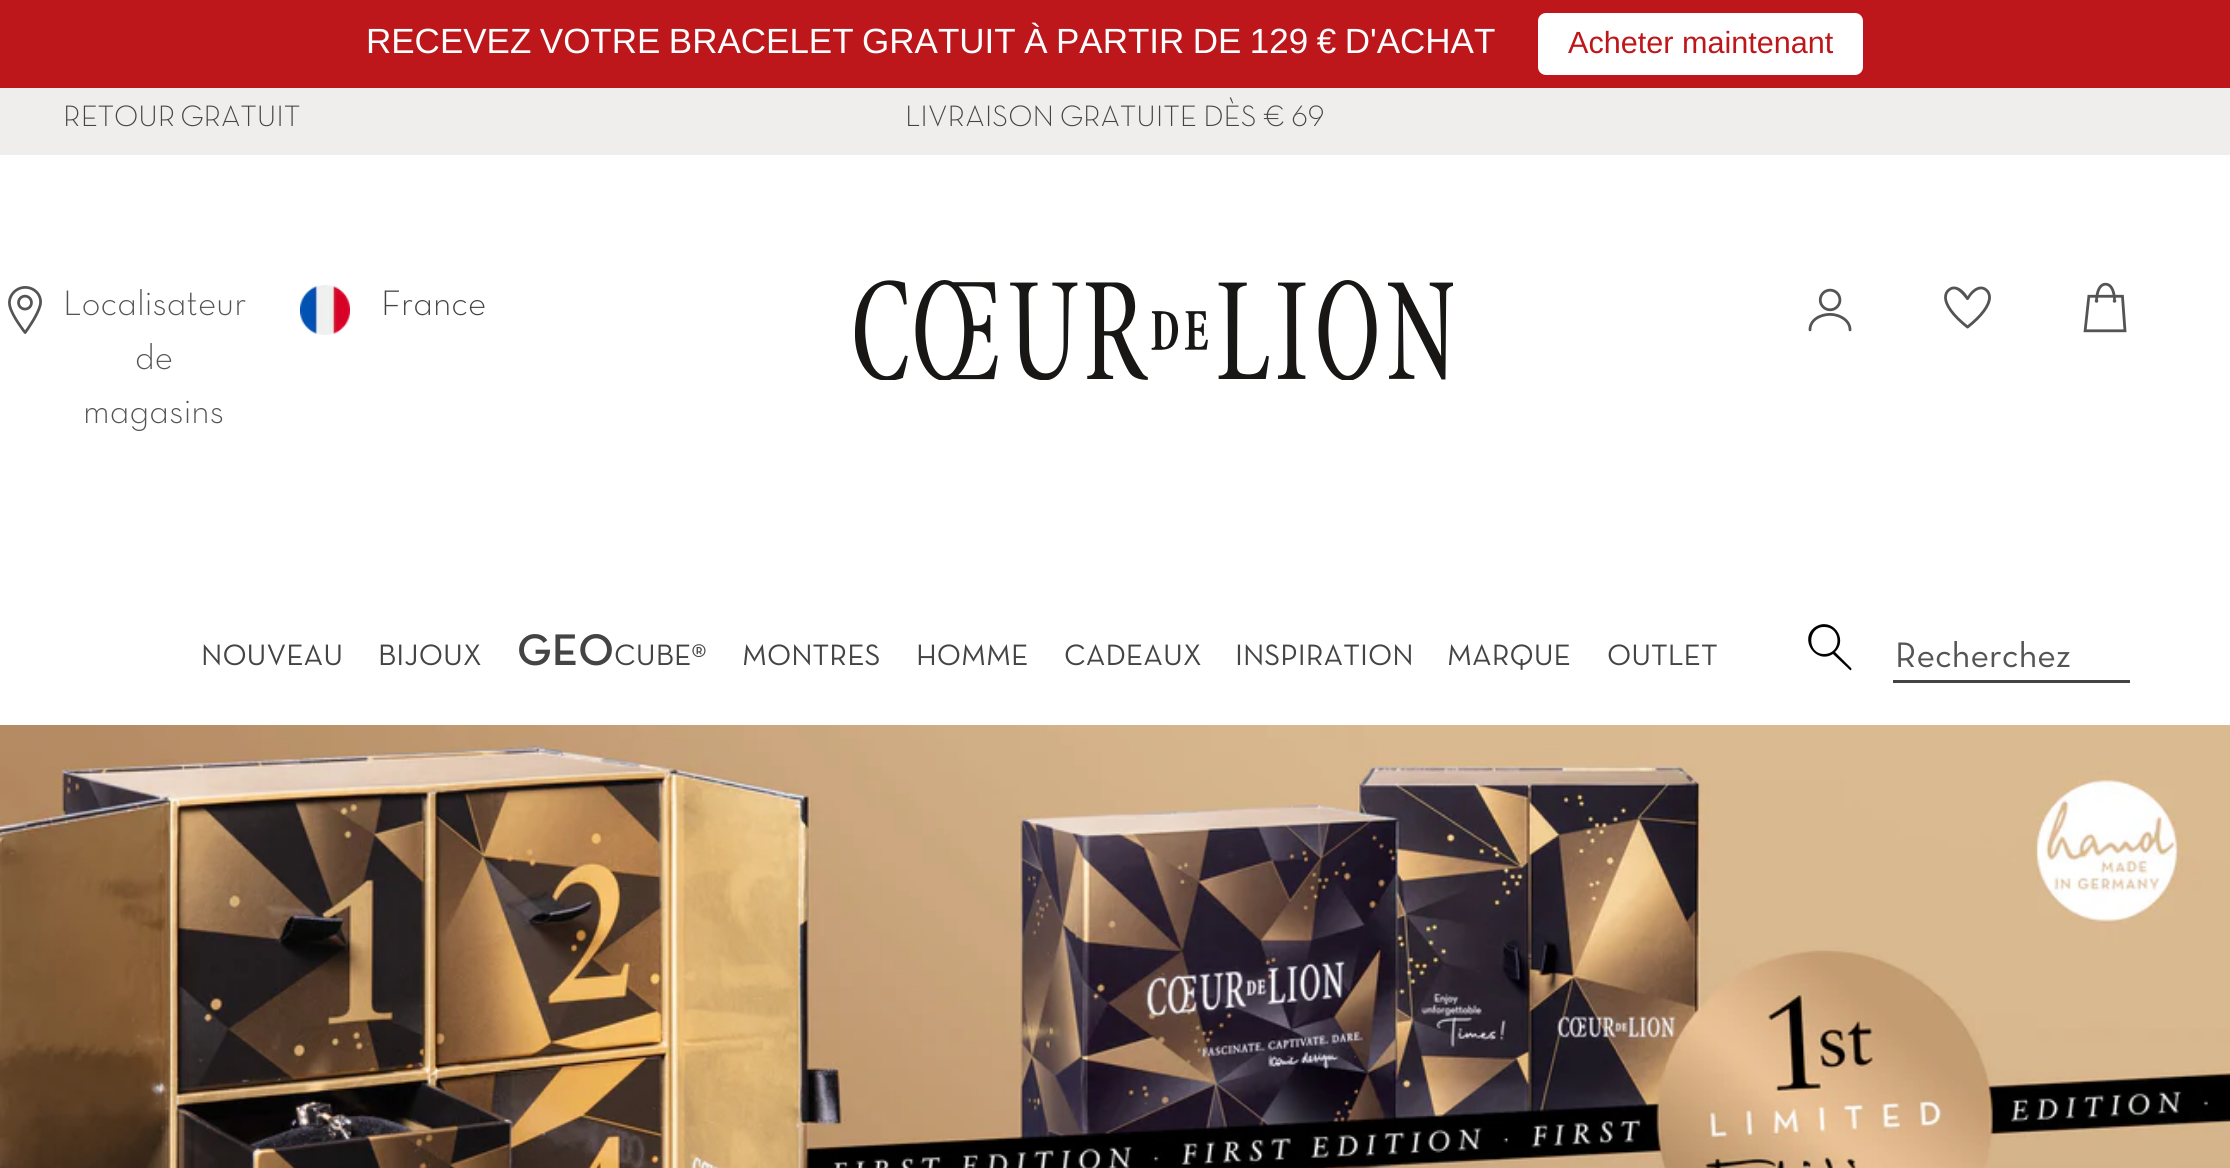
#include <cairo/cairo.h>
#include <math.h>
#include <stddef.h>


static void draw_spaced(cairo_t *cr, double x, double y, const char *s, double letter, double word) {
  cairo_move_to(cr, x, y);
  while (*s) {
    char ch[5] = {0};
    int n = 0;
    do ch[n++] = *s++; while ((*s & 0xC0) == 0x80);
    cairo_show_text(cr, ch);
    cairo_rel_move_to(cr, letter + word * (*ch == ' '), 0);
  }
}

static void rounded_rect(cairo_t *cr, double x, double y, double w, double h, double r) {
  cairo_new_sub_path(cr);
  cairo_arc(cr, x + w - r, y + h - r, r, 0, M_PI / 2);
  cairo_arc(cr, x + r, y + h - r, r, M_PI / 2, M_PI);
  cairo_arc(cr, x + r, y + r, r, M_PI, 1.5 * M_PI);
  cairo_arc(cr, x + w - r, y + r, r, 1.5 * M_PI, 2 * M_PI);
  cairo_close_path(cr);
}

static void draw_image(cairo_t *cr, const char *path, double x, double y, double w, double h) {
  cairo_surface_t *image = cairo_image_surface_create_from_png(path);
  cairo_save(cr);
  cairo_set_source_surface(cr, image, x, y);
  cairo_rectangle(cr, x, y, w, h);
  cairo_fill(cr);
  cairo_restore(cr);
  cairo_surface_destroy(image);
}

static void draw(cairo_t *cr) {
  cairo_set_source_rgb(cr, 1, 1, 1);
  cairo_paint(cr);
  cairo_set_source_rgb(cr, 189 / 255.0, 23 / 255.0, 27 / 255.0);
  cairo_rectangle(cr, 0, 0, 2230, 88);
  cairo_fill(cr);
  cairo_set_source_rgb(cr, 1, 1, 1);
  rounded_rect(cr, 1538, 13, 325, 62, 8);
  cairo_fill(cr);
  cairo_set_source_rgb(cr, 239 / 255.0, 238 / 255.0, 236 / 255.0);
  cairo_rectangle(cr, 0, 88, 2230, 67);
  cairo_fill(cr);
  draw_image(cr, "images/1.png", 8, 286, 34, 48);
  draw_image(cr, "images/2.png", 300, 285, 50, 50);
  draw_image(cr, "images/3.png", 855, 280, 598, 100);
  draw_image(cr, "images/4.png", 1808, 288, 44, 44);
  draw_image(cr, "images/5.png", 1944, 286, 47, 43);
  draw_image(cr, "images/6.png", 2083, 282, 44, 51);
  cairo_set_source_rgb(cr, 0, 0, 0);
  cairo_new_path(cr);
  cairo_move_to(cr, 1824, 654);
  cairo_curve_to(cr, 1807, 654, 1807, 627, 1824, 627);
  cairo_curve_to(cr, 1842, 627, 1842, 654, 1824, 654);
  cairo_move_to(cr, 1851, 668);
  cairo_line_to(cr, 1835, 652);
  cairo_curve_to(cr, 1849, 639, 1832, 616, 1815, 627);
  cairo_curve_to(cr, 1798, 639, 1816, 665, 1833, 654);
  cairo_line_to(cr, 1850, 670);
  cairo_curve_to(cr, 1851, 671, 1852, 669, 1851, 668);
  cairo_fill(cr);
  cairo_set_source_rgb(cr, 69 / 255.0, 68 / 255.0, 68 / 255.0);
  cairo_rectangle(cr, 1893, 680, 237, 3);
  cairo_fill(cr);
  draw_image(cr, "images/7.png", 0, 725, 2230, 443);
  cairo_select_font_face(cr, "Liberation Sans", CAIRO_FONT_SLANT_NORMAL, CAIRO_FONT_WEIGHT_NORMAL);
  cairo_set_font_size(cr, 35);
  cairo_set_source_rgb(cr, 1, 1, 1);
  draw_spaced(cr, 366, 53, "RECEVEZ VOTRE BRACELET GRATUIT À PARTIR DE 129 € D'ACHAT", 0, -1.25);
  cairo_set_font_size(cr, 30.6);
  cairo_set_source_rgb(cr, 189 / 255.0, 23 / 255.0, 27 / 255.0);
  cairo_move_to(cr, 1568, 53);
  cairo_show_text(cr, "Acheter maintenant");
  cairo_select_font_face(cr, "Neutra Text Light", CAIRO_FONT_SLANT_NORMAL, CAIRO_FONT_WEIGHT_NORMAL);
  cairo_set_font_size(cr, 30);
  cairo_set_source_rgb(cr, 69 / 255.0, 68 / 255.0, 68 / 255.0);
  draw_spaced(cr, 63, 126, "RETOUR GRATUIT", 0, -2);
  draw_spaced(cr, 905, 126, "LIVRAISON GRATUITE DÈS € 69", 0, -1);
  cairo_set_font_size(cr, 36);
  cairo_set_source_rgb(cr, 84 / 255.0, 84 / 255.0, 84 / 255.0);
  cairo_move_to(cr, 63, 315);
  cairo_show_text(cr, "Localisateur");
  cairo_move_to(cr, 135, 369);
  cairo_show_text(cr, "de");
  cairo_move_to(cr, 83, 423);
  cairo_show_text(cr, "magasins");
  cairo_set_source_rgb(cr, 69 / 255.0, 68 / 255.0, 68 / 255.0);
  cairo_move_to(cr, 381, 315);
  cairo_show_text(cr, "France");
  cairo_select_font_face(cr, "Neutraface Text", CAIRO_FONT_SLANT_NORMAL, CAIRO_FONT_WEIGHT_NORMAL);
  cairo_set_font_size(cr, 30);
  cairo_move_to(cr, 201, 665);
  cairo_show_text(cr, "NOUVEAU");
  cairo_move_to(cr, 378, 665);
  cairo_show_text(cr, "BIJOUX");
  cairo_select_font_face(cr, "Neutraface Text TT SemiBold", CAIRO_FONT_SLANT_NORMAL, CAIRO_FONT_WEIGHT_NORMAL);
  cairo_set_font_size(cr, 45);
  cairo_move_to(cr, 517, 665);
  cairo_show_text(cr, "GEO");
  cairo_select_font_face(cr, "Neutraface Text", CAIRO_FONT_SLANT_NORMAL, CAIRO_FONT_WEIGHT_NORMAL);
  cairo_set_font_size(cr, 30);
  cairo_move_to(cr, 614, 665);
  cairo_show_text(cr, "CUBE®");
  cairo_move_to(cr, 742, 665);
  cairo_show_text(cr, "MONTRES");
  cairo_move_to(cr, 916, 665);
  cairo_show_text(cr, "HOMME");
  cairo_move_to(cr, 1064, 665);
  cairo_show_text(cr, "CADEAUX");
  cairo_move_to(cr, 1235, 665);
  cairo_show_text(cr, "INSPIRATION");
  cairo_move_to(cr, 1447, 665);
  cairo_show_text(cr, "MARQUE");
  cairo_move_to(cr, 1607, 665);
  cairo_show_text(cr, "OUTLET");
  cairo_set_font_size(cr, 36);
  cairo_set_source_rgb(cr, 84 / 255.0, 84 / 255.0, 84 / 255.0);
  cairo_move_to(cr, 1895, 667);
  cairo_show_text(cr, "Recherchez");
}

int main(void) {
  cairo_surface_t *surface = cairo_image_surface_create(CAIRO_FORMAT_RGB24, 2230, 1168);
  cairo_t *cr = cairo_create(surface);
  cairo_font_options_t *options = cairo_font_options_create();
  cairo_font_options_set_hint_metrics(options, CAIRO_HINT_METRICS_OFF);
  cairo_font_options_set_hint_style(options, CAIRO_HINT_STYLE_NONE);
  cairo_set_font_options(cr, options);
  cairo_set_miter_limit(cr, 4);
  draw(cr);
  cairo_surface_write_to_png(surface, "out.png");
  cairo_font_options_destroy(options);
  cairo_destroy(cr);
  cairo_surface_destroy(surface);
  return 0;
}
